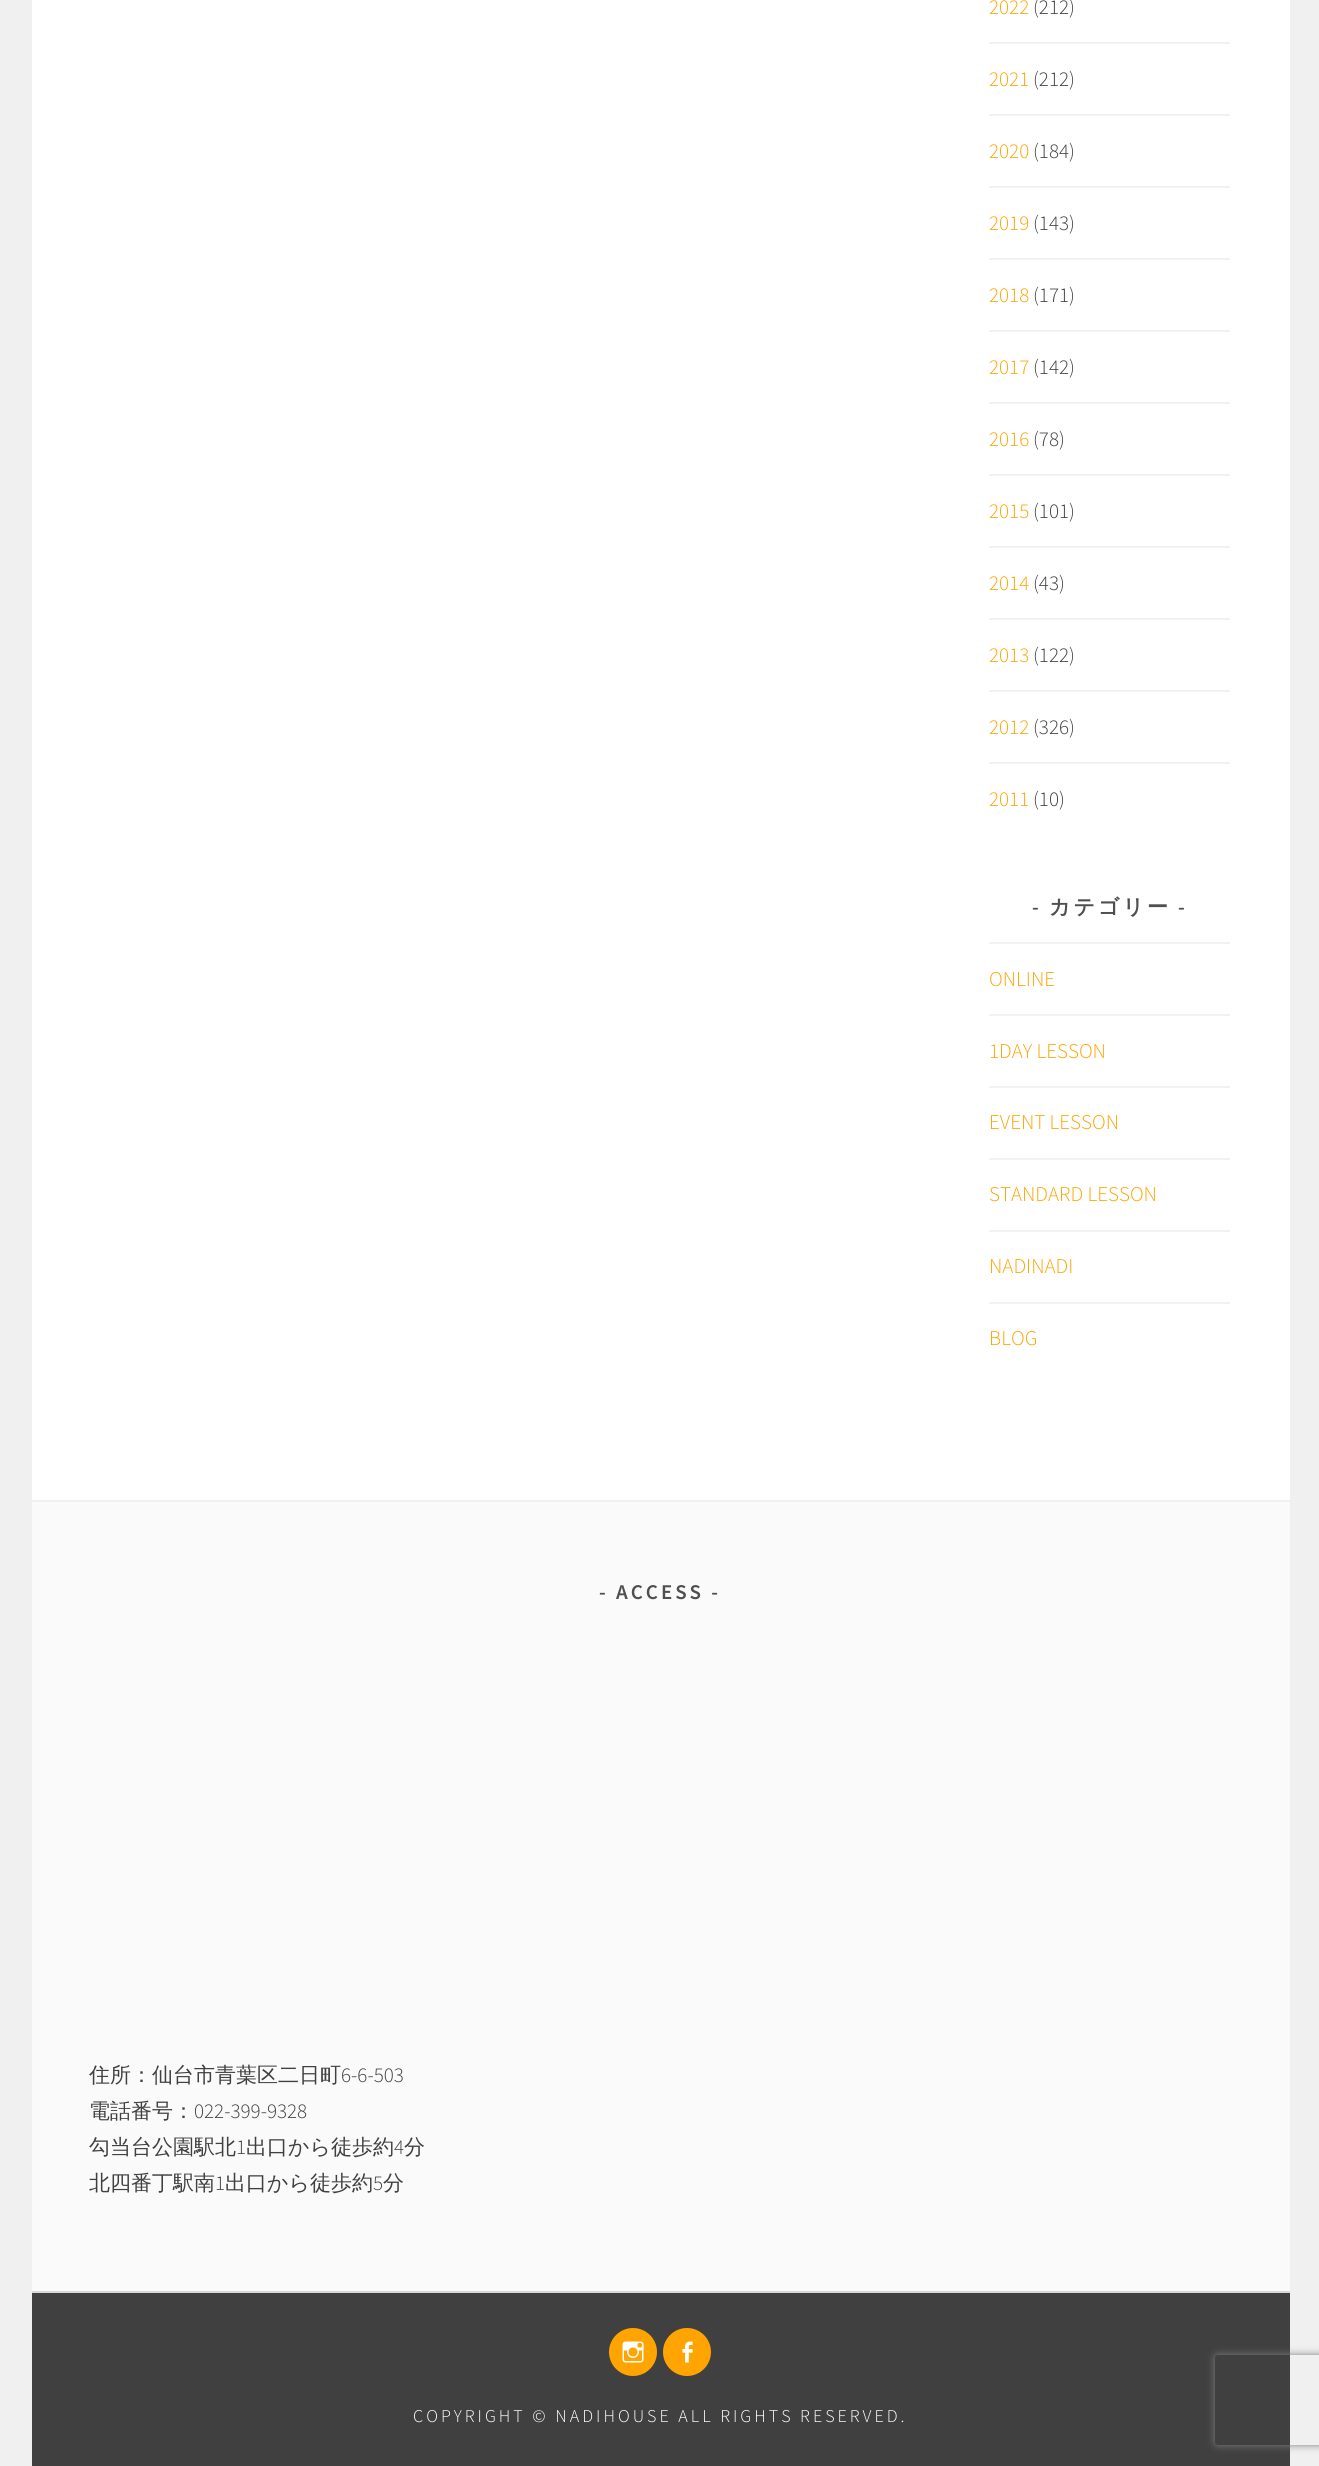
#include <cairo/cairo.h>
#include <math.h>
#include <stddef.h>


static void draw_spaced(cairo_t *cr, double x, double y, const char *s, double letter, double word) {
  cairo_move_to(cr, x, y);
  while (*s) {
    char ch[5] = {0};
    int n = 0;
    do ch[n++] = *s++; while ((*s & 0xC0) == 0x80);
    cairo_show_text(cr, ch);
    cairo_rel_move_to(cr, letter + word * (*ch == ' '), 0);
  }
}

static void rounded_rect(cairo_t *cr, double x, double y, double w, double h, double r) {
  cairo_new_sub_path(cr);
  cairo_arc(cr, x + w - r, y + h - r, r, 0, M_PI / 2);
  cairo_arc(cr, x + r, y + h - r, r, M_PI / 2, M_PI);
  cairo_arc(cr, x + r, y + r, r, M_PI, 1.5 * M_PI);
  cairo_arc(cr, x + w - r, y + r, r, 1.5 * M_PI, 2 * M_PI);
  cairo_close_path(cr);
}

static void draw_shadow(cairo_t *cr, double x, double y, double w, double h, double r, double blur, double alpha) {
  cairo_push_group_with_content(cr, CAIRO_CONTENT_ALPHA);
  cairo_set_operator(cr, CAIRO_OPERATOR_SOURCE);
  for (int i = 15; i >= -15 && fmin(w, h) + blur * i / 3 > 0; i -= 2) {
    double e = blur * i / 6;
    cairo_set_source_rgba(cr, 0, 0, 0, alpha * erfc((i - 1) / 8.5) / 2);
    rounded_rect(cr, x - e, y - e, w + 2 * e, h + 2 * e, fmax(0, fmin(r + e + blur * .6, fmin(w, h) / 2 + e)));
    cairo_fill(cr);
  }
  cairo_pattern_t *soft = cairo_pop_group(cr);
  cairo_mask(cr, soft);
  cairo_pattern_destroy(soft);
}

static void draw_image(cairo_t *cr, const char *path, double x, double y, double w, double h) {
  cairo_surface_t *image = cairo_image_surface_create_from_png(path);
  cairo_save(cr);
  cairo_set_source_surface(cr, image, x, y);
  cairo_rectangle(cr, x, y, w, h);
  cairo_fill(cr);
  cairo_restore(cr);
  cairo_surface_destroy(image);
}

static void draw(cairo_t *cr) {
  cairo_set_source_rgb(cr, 240 / 255.0, 240 / 255.0, 240 / 255.0);
  cairo_paint(cr);
  cairo_set_source_rgb(cr, 1, 1, 1);
  cairo_rectangle(cr, 32, 0, 1258, 1500);
  cairo_fill(cr);
  cairo_set_source_rgb(cr, 242 / 255.0, 242 / 255.0, 242 / 255.0);
  cairo_rectangle(cr, 989, 42, 241, 2);
  cairo_fill(cr);
  cairo_rectangle(cr, 989, 114, 241, 2);
  cairo_fill(cr);
  cairo_rectangle(cr, 989, 186, 241, 2);
  cairo_fill(cr);
  cairo_rectangle(cr, 989, 258, 241, 2);
  cairo_fill(cr);
  cairo_rectangle(cr, 989, 330, 241, 2);
  cairo_fill(cr);
  cairo_rectangle(cr, 989, 402, 241, 2);
  cairo_fill(cr);
  cairo_rectangle(cr, 989, 474, 241, 2);
  cairo_fill(cr);
  cairo_rectangle(cr, 989, 546, 241, 2);
  cairo_fill(cr);
  cairo_rectangle(cr, 989, 618, 241, 2);
  cairo_fill(cr);
  cairo_rectangle(cr, 989, 690, 241, 2);
  cairo_fill(cr);
  cairo_rectangle(cr, 989, 762, 241, 2);
  cairo_fill(cr);
  cairo_rectangle(cr, 989, 942, 241, 2);
  cairo_fill(cr);
  cairo_rectangle(cr, 989, 1014, 241, 2);
  cairo_fill(cr);
  cairo_rectangle(cr, 989, 1086, 241, 2);
  cairo_fill(cr);
  cairo_rectangle(cr, 989, 1158, 241, 2);
  cairo_fill(cr);
  cairo_rectangle(cr, 989, 1230, 241, 2);
  cairo_fill(cr);
  cairo_rectangle(cr, 989, 1302, 241, 2);
  cairo_fill(cr);
  cairo_set_source_rgb(cr, 250 / 255.0, 250 / 255.0, 250 / 255.0);
  cairo_rectangle(cr, 32, 1502, 1258, 789);
  cairo_fill(cr);
  cairo_set_source_rgb(cr, 64 / 255.0, 64 / 255.0, 64 / 255.0);
  cairo_rectangle(cr, 32, 2293, 1258, 173);
  cairo_fill(cr);
  cairo_set_source_rgb(cr, 217 / 255.0, 217 / 255.0, 217 / 255.0);
  cairo_rectangle(cr, 32, 2291, 1258, 2);
  cairo_fill(cr);
  cairo_set_source_rgb(cr, 1, 164 / 255.0, 0);
  cairo_arc(cr, 633, 2352, 24, 0, 2 * M_PI);
  cairo_fill(cr);
  draw_image(cr, "images/1.png", 622, 2341, 22, 22);
  cairo_arc(cr, 687, 2352, 24, 0, 2 * M_PI);
  cairo_fill(cr);
  draw_image(cr, "images/2.png", 682, 2341, 11, 22);
  cairo_save(cr);
  cairo_set_fill_rule(cr, CAIRO_FILL_RULE_EVEN_ODD);
  cairo_new_path(cr);
  cairo_move_to(cr, 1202, 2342);
  cairo_line_to(cr, 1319, 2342);
  cairo_line_to(cr, 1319, 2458);
  cairo_line_to(cr, 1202, 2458);
  cairo_close_path(cr);
  cairo_move_to(cr, 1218, 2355);
  cairo_line_to(cr, 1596, 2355);
  cairo_curve_to(cr, 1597.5, 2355, 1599, 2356.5, 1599, 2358);
  cairo_line_to(cr, 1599, 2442);
  cairo_curve_to(cr, 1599, 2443.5, 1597.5, 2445, 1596, 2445);
  cairo_line_to(cr, 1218, 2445);
  cairo_curve_to(cr, 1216.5, 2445, 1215, 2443.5, 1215, 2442);
  cairo_line_to(cr, 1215, 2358);
  cairo_curve_to(cr, 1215, 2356.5, 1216.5, 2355, 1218, 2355);
  cairo_close_path(cr);
  cairo_clip(cr);
  cairo_set_source_rgb(cr, 128 / 255.0, 128 / 255.0, 128 / 255.0);
  draw_shadow(cr, 1215, 2355, 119, 90, 3, 4, 1);
  cairo_restore(cr);
  cairo_select_font_face(cr, "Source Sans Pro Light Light", CAIRO_FONT_SLANT_NORMAL, CAIRO_FONT_WEIGHT_NORMAL);
  cairo_set_font_size(cr, 21);
  cairo_move_to(cr, 989, 14);
  cairo_show_text(cr, "2022");
  cairo_set_source_rgb(cr, 64 / 255.0, 64 / 255.0, 64 / 255.0);
  cairo_move_to(cr, 1033, 14);
  cairo_show_text(cr, "(212)");
  cairo_set_source_rgb(cr, 1, 164 / 255.0, 0);
  cairo_move_to(cr, 989, 86);
  cairo_show_text(cr, "2021");
  cairo_set_source_rgb(cr, 64 / 255.0, 64 / 255.0, 64 / 255.0);
  cairo_move_to(cr, 1033, 86);
  cairo_show_text(cr, "(212)");
  cairo_set_source_rgb(cr, 1, 164 / 255.0, 0);
  cairo_move_to(cr, 989, 158);
  cairo_show_text(cr, "2020");
  cairo_set_source_rgb(cr, 64 / 255.0, 64 / 255.0, 64 / 255.0);
  cairo_move_to(cr, 1033, 158);
  cairo_show_text(cr, "(184)");
  cairo_set_source_rgb(cr, 1, 164 / 255.0, 0);
  cairo_move_to(cr, 989, 230);
  cairo_show_text(cr, "2019");
  cairo_set_source_rgb(cr, 64 / 255.0, 64 / 255.0, 64 / 255.0);
  cairo_move_to(cr, 1033, 230);
  cairo_show_text(cr, "(143)");
  cairo_set_source_rgb(cr, 1, 164 / 255.0, 0);
  cairo_move_to(cr, 989, 302);
  cairo_show_text(cr, "2018");
  cairo_set_source_rgb(cr, 64 / 255.0, 64 / 255.0, 64 / 255.0);
  cairo_move_to(cr, 1033, 302);
  cairo_show_text(cr, "(171)");
  cairo_set_source_rgb(cr, 1, 164 / 255.0, 0);
  cairo_move_to(cr, 989, 374);
  cairo_show_text(cr, "2017");
  cairo_set_source_rgb(cr, 64 / 255.0, 64 / 255.0, 64 / 255.0);
  cairo_move_to(cr, 1033, 374);
  cairo_show_text(cr, "(142)");
  cairo_set_source_rgb(cr, 1, 164 / 255.0, 0);
  cairo_move_to(cr, 989, 446);
  cairo_show_text(cr, "2016");
  cairo_set_source_rgb(cr, 64 / 255.0, 64 / 255.0, 64 / 255.0);
  cairo_move_to(cr, 1033, 446);
  cairo_show_text(cr, "(78)");
  cairo_set_source_rgb(cr, 1, 164 / 255.0, 0);
  cairo_move_to(cr, 989, 518);
  cairo_show_text(cr, "2015");
  cairo_set_source_rgb(cr, 64 / 255.0, 64 / 255.0, 64 / 255.0);
  cairo_move_to(cr, 1033, 518);
  cairo_show_text(cr, "(101)");
  cairo_set_source_rgb(cr, 1, 164 / 255.0, 0);
  cairo_move_to(cr, 989, 590);
  cairo_show_text(cr, "2014");
  cairo_set_source_rgb(cr, 64 / 255.0, 64 / 255.0, 64 / 255.0);
  cairo_move_to(cr, 1033, 590);
  cairo_show_text(cr, "(43)");
  cairo_set_source_rgb(cr, 1, 164 / 255.0, 0);
  cairo_move_to(cr, 989, 662);
  cairo_show_text(cr, "2013");
  cairo_set_source_rgb(cr, 64 / 255.0, 64 / 255.0, 64 / 255.0);
  cairo_move_to(cr, 1033, 662);
  cairo_show_text(cr, "(122)");
  cairo_set_source_rgb(cr, 1, 164 / 255.0, 0);
  cairo_move_to(cr, 989, 734);
  cairo_show_text(cr, "2012");
  cairo_set_source_rgb(cr, 64 / 255.0, 64 / 255.0, 64 / 255.0);
  cairo_move_to(cr, 1033, 734);
  cairo_show_text(cr, "(326)");
  cairo_set_source_rgb(cr, 1, 164 / 255.0, 0);
  cairo_move_to(cr, 989, 806);
  cairo_show_text(cr, "2011");
  cairo_set_source_rgb(cr, 64 / 255.0, 64 / 255.0, 64 / 255.0);
  cairo_move_to(cr, 1033, 806);
  cairo_show_text(cr, "(10)");
  cairo_select_font_face(cr, "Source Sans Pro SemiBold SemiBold", CAIRO_FONT_SLANT_NORMAL, CAIRO_FONT_WEIGHT_NORMAL);
  cairo_set_source_rgb(cr, 79 / 255.0, 79 / 255.0, 79 / 255.0);
  draw_spaced(cr, 1032, 914, "-", 3, 0);
  cairo_select_font_face(cr, "WenQuanYi Zen Hei", CAIRO_FONT_SLANT_NORMAL, CAIRO_FONT_WEIGHT_BOLD);
  draw_spaced(cr, 1049, 914, "カテゴリー", 3, 0);
  cairo_select_font_face(cr, "Source Sans Pro SemiBold SemiBold", CAIRO_FONT_SLANT_NORMAL, CAIRO_FONT_WEIGHT_NORMAL);
  draw_spaced(cr, 1178, 914, "-", 3, 0);
  cairo_select_font_face(cr, "Source Sans Pro Light Light", CAIRO_FONT_SLANT_NORMAL, CAIRO_FONT_WEIGHT_NORMAL);
  cairo_set_source_rgb(cr, 1, 164 / 255.0, 0);
  cairo_move_to(cr, 989, 986);
  cairo_show_text(cr, "ONLINE");
  cairo_move_to(cr, 989, 1058);
  cairo_show_text(cr, "1DAY LESSON");
  cairo_move_to(cr, 989, 1129);
  cairo_show_text(cr, "EVENT LESSON");
  cairo_move_to(cr, 989, 1201);
  cairo_show_text(cr, "STANDARD LESSON");
  cairo_move_to(cr, 989, 1273);
  cairo_show_text(cr, "NADINADI");
  cairo_move_to(cr, 989, 1345);
  cairo_show_text(cr, "BLOG");
  cairo_select_font_face(cr, "Source Sans Pro SemiBold SemiBold", CAIRO_FONT_SLANT_NORMAL, CAIRO_FONT_WEIGHT_NORMAL);
  cairo_set_source_rgb(cr, 79 / 255.0, 79 / 255.0, 79 / 255.0);
  draw_spaced(cr, 599, 1599, "- ACCESS -", 3, 0);
  cairo_select_font_face(cr, "WenQuanYi Zen Hei Medium", CAIRO_FONT_SLANT_NORMAL, CAIRO_FONT_WEIGHT_NORMAL);
  cairo_set_source_rgb(cr, 64 / 255.0, 64 / 255.0, 64 / 255.0);
  cairo_move_to(cr, 89, 2082);
  cairo_show_text(cr, "住所：仙台市青葉区二日町");
  cairo_select_font_face(cr, "Source Sans Pro Light Light", CAIRO_FONT_SLANT_NORMAL, CAIRO_FONT_WEIGHT_NORMAL);
  cairo_move_to(cr, 341, 2082);
  cairo_show_text(cr, "6-6-503");
  cairo_select_font_face(cr, "WenQuanYi Zen Hei Medium", CAIRO_FONT_SLANT_NORMAL, CAIRO_FONT_WEIGHT_NORMAL);
  cairo_move_to(cr, 89, 2118);
  cairo_show_text(cr, "電話番号：");
  cairo_select_font_face(cr, "Source Sans Pro Light Light", CAIRO_FONT_SLANT_NORMAL, CAIRO_FONT_WEIGHT_NORMAL);
  cairo_move_to(cr, 194, 2118);
  cairo_show_text(cr, "022-399-9328");
  cairo_select_font_face(cr, "WenQuanYi Zen Hei Medium", CAIRO_FONT_SLANT_NORMAL, CAIRO_FONT_WEIGHT_NORMAL);
  cairo_move_to(cr, 89, 2154);
  cairo_show_text(cr, "勾当台公園駅北");
  cairo_select_font_face(cr, "Source Sans Pro Light Light", CAIRO_FONT_SLANT_NORMAL, CAIRO_FONT_WEIGHT_NORMAL);
  cairo_move_to(cr, 236, 2154);
  cairo_show_text(cr, "1");
  cairo_select_font_face(cr, "WenQuanYi Zen Hei Medium", CAIRO_FONT_SLANT_NORMAL, CAIRO_FONT_WEIGHT_NORMAL);
  cairo_move_to(cr, 246, 2154);
  cairo_show_text(cr, "出口から徒歩約");
  cairo_select_font_face(cr, "Source Sans Pro Light Light", CAIRO_FONT_SLANT_NORMAL, CAIRO_FONT_WEIGHT_NORMAL);
  cairo_move_to(cr, 394, 2154);
  cairo_show_text(cr, "4");
  cairo_select_font_face(cr, "WenQuanYi Zen Hei Medium", CAIRO_FONT_SLANT_NORMAL, CAIRO_FONT_WEIGHT_NORMAL);
  cairo_move_to(cr, 404, 2154);
  cairo_show_text(cr, "分");
  cairo_move_to(cr, 89, 2190);
  cairo_show_text(cr, "北四番丁駅南");
  cairo_select_font_face(cr, "Source Sans Pro Light Light", CAIRO_FONT_SLANT_NORMAL, CAIRO_FONT_WEIGHT_NORMAL);
  cairo_move_to(cr, 215, 2190);
  cairo_show_text(cr, "1");
  cairo_select_font_face(cr, "WenQuanYi Zen Hei Medium", CAIRO_FONT_SLANT_NORMAL, CAIRO_FONT_WEIGHT_NORMAL);
  cairo_move_to(cr, 225, 2190);
  cairo_show_text(cr, "出口から徒歩約");
  cairo_select_font_face(cr, "Source Sans Pro Light Light", CAIRO_FONT_SLANT_NORMAL, CAIRO_FONT_WEIGHT_NORMAL);
  cairo_move_to(cr, 373, 2190);
  cairo_show_text(cr, "5");
  cairo_select_font_face(cr, "WenQuanYi Zen Hei Medium", CAIRO_FONT_SLANT_NORMAL, CAIRO_FONT_WEIGHT_NORMAL);
  cairo_move_to(cr, 383, 2190);
  cairo_show_text(cr, "分");
  cairo_select_font_face(cr, "Source Sans Pro Light Light", CAIRO_FONT_SLANT_NORMAL, CAIRO_FONT_WEIGHT_NORMAL);
  cairo_set_font_size(cr, 18);
  cairo_set_source_rgb(cr, 1, 1, 1);
  draw_spaced(cr, 413, 2422, "COPYRIGHT © NADIHOUSE ALL RIGHTS RESERVED.", 3, 0);
}

int main(void) {
  cairo_surface_t *surface = cairo_image_surface_create(CAIRO_FORMAT_RGB24, 1319, 2466);
  cairo_t *cr = cairo_create(surface);
  cairo_font_options_t *options = cairo_font_options_create();
  cairo_font_options_set_hint_metrics(options, CAIRO_HINT_METRICS_OFF);
  cairo_font_options_set_hint_style(options, CAIRO_HINT_STYLE_NONE);
  cairo_set_font_options(cr, options);
  cairo_set_miter_limit(cr, 4);
  draw(cr);
  cairo_surface_write_to_png(surface, "out.png");
  cairo_font_options_destroy(options);
  cairo_destroy(cr);
  cairo_surface_destroy(surface);
  return 0;
}
